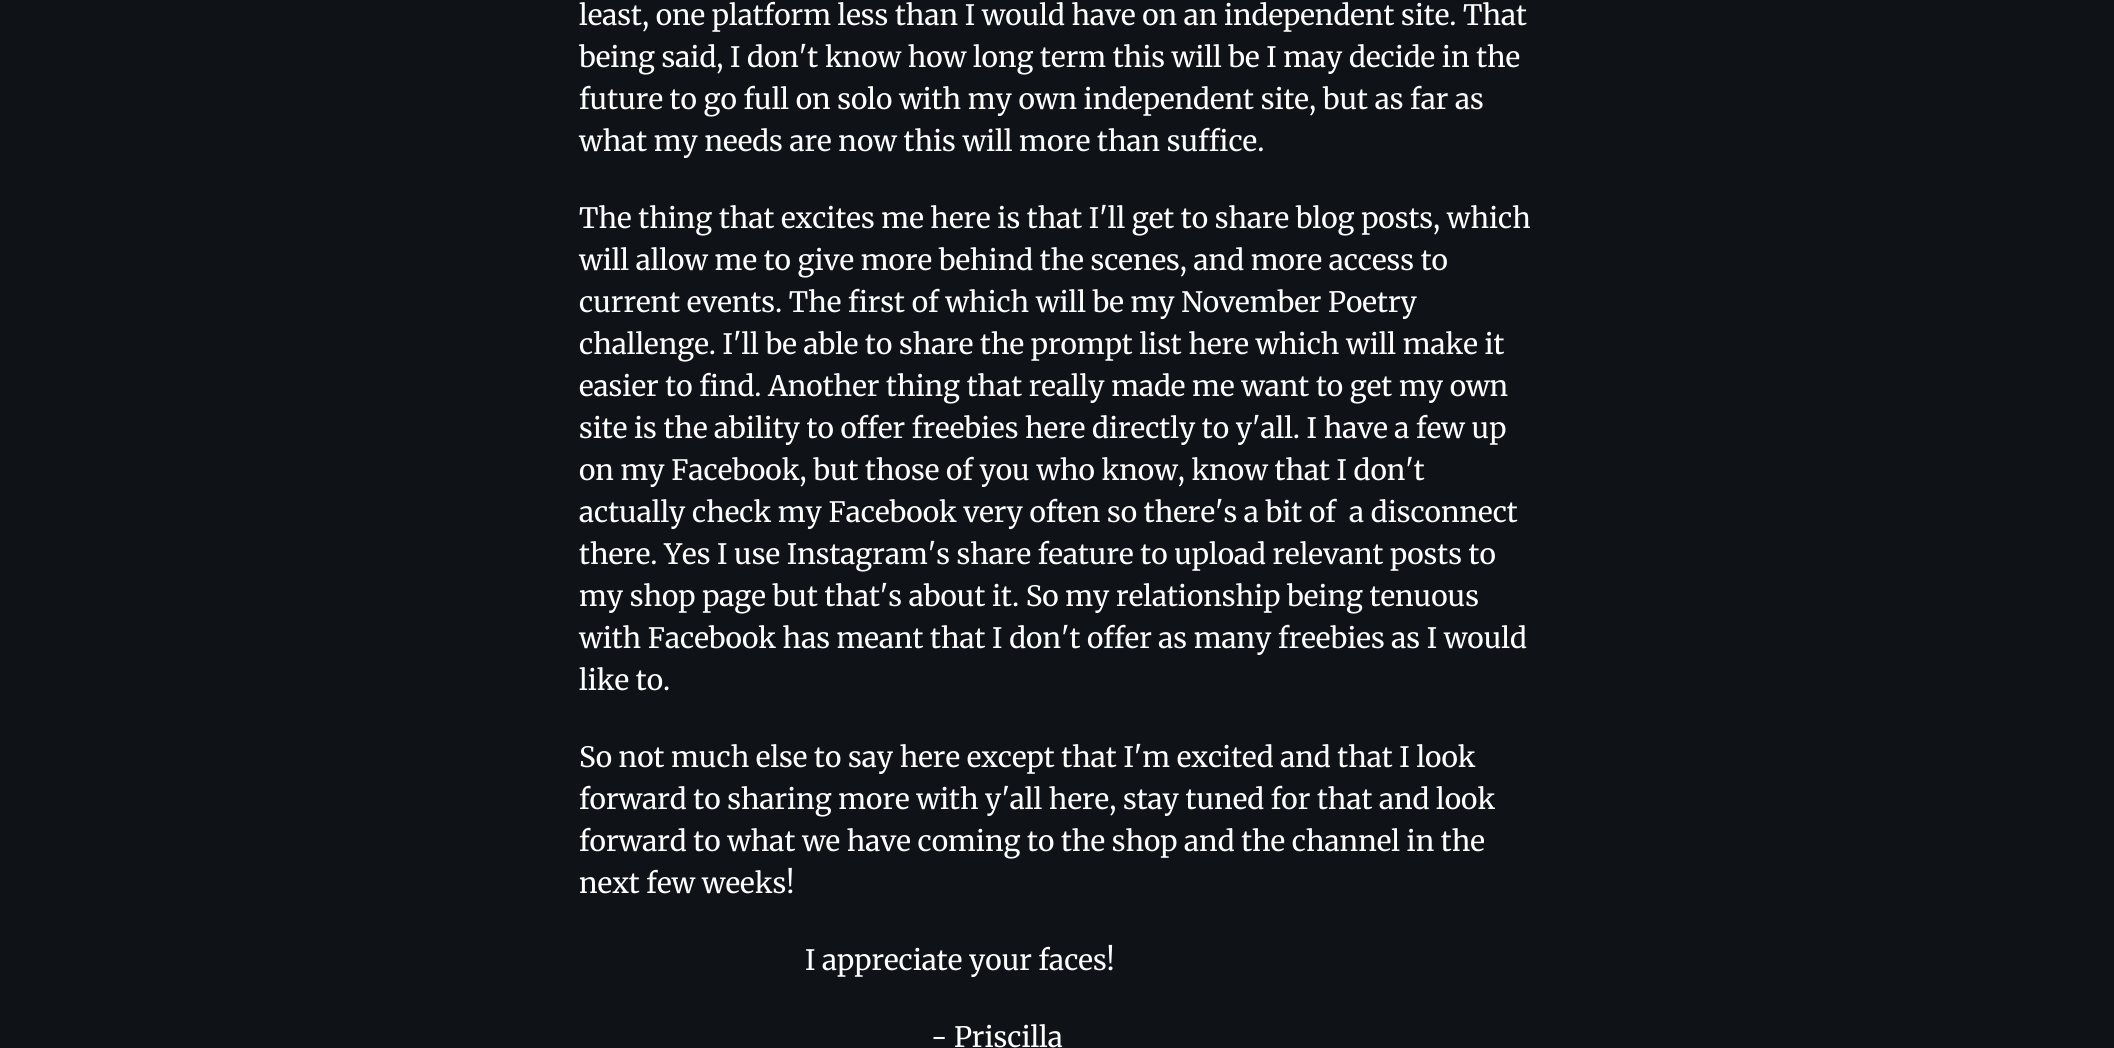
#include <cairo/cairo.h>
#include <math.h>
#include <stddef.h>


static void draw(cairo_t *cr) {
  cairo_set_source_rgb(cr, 15 / 255.0, 18 / 255.0, 23 / 255.0);
  cairo_paint(cr);
  cairo_select_font_face(cr, "Merriweather", CAIRO_FONT_SLANT_NORMAL, CAIRO_FONT_WEIGHT_NORMAL);
  cairo_set_font_size(cr, 28);
  cairo_set_source_rgb(cr, 1, 1, 1);
  cairo_move_to(cr, 579, 25);
  cairo_show_text(cr, "least, one platform less than I would have on an independent site. That");
  cairo_move_to(cr, 579, 67);
  cairo_show_text(cr, "being said, I don't know how long term this will be I may decide in the");
  cairo_move_to(cr, 579, 109);
  cairo_show_text(cr, "future to go full on solo with my own independent site, but as far as");
  cairo_move_to(cr, 579, 151);
  cairo_show_text(cr, "what my needs are now this will more than suffice.");
  cairo_move_to(cr, 579, 228);
  cairo_show_text(cr, "The thing that excites me here is that I'll get to share blog posts, which");
  cairo_move_to(cr, 579, 270);
  cairo_show_text(cr, "will allow me to give more behind the scenes, and more access to");
  cairo_move_to(cr, 579, 312);
  cairo_show_text(cr, "current events. The first of which will be my November Poetry");
  cairo_move_to(cr, 579, 354);
  cairo_show_text(cr, "challenge. I'll be able to share the prompt list here which will make it");
  cairo_move_to(cr, 579, 396);
  cairo_show_text(cr, "easier to find. Another thing that really made me want to get my own");
  cairo_move_to(cr, 579, 438);
  cairo_show_text(cr, "site is the ability to offer freebies here directly to y'all. I have a few up");
  cairo_move_to(cr, 579, 480);
  cairo_show_text(cr, "on my Facebook, but those of you who know, know that I don't");
  cairo_move_to(cr, 579, 522);
  cairo_show_text(cr, "actually check my Facebook very often so there's a bit of  a disconnect");
  cairo_move_to(cr, 579, 564);
  cairo_show_text(cr, "there. Yes I use Instagram's share feature to upload relevant posts to");
  cairo_move_to(cr, 579, 606);
  cairo_show_text(cr, "my shop page but that's about it. So my relationship being tenuous");
  cairo_move_to(cr, 579, 648);
  cairo_show_text(cr, "with Facebook has meant that I don't offer as many freebies as I would");
  cairo_move_to(cr, 579, 690);
  cairo_show_text(cr, "like to.");
  cairo_move_to(cr, 579, 767);
  cairo_show_text(cr, "So not much else to say here except that I'm excited and that I look");
  cairo_move_to(cr, 579, 809);
  cairo_show_text(cr, "forward to sharing more with y'all here, stay tuned for that and look");
  cairo_move_to(cr, 579, 851);
  cairo_show_text(cr, "forward to what we have coming to the shop and the channel in the");
  cairo_move_to(cr, 579, 893);
  cairo_show_text(cr, "next few weeks!");
  cairo_move_to(cr, 805, 970);
  cairo_show_text(cr, "I appreciate your faces!");
  cairo_move_to(cr, 931, 1047);
  cairo_show_text(cr, "- Priscilla");
}

int main(void) {
  cairo_surface_t *surface = cairo_image_surface_create(CAIRO_FORMAT_RGB24, 2114, 1048);
  cairo_t *cr = cairo_create(surface);
  cairo_font_options_t *options = cairo_font_options_create();
  cairo_font_options_set_hint_metrics(options, CAIRO_HINT_METRICS_OFF);
  cairo_font_options_set_hint_style(options, CAIRO_HINT_STYLE_NONE);
  cairo_set_font_options(cr, options);
  cairo_set_miter_limit(cr, 4);
  draw(cr);
  cairo_surface_write_to_png(surface, "out.png");
  cairo_font_options_destroy(options);
  cairo_destroy(cr);
  cairo_surface_destroy(surface);
  return 0;
}
